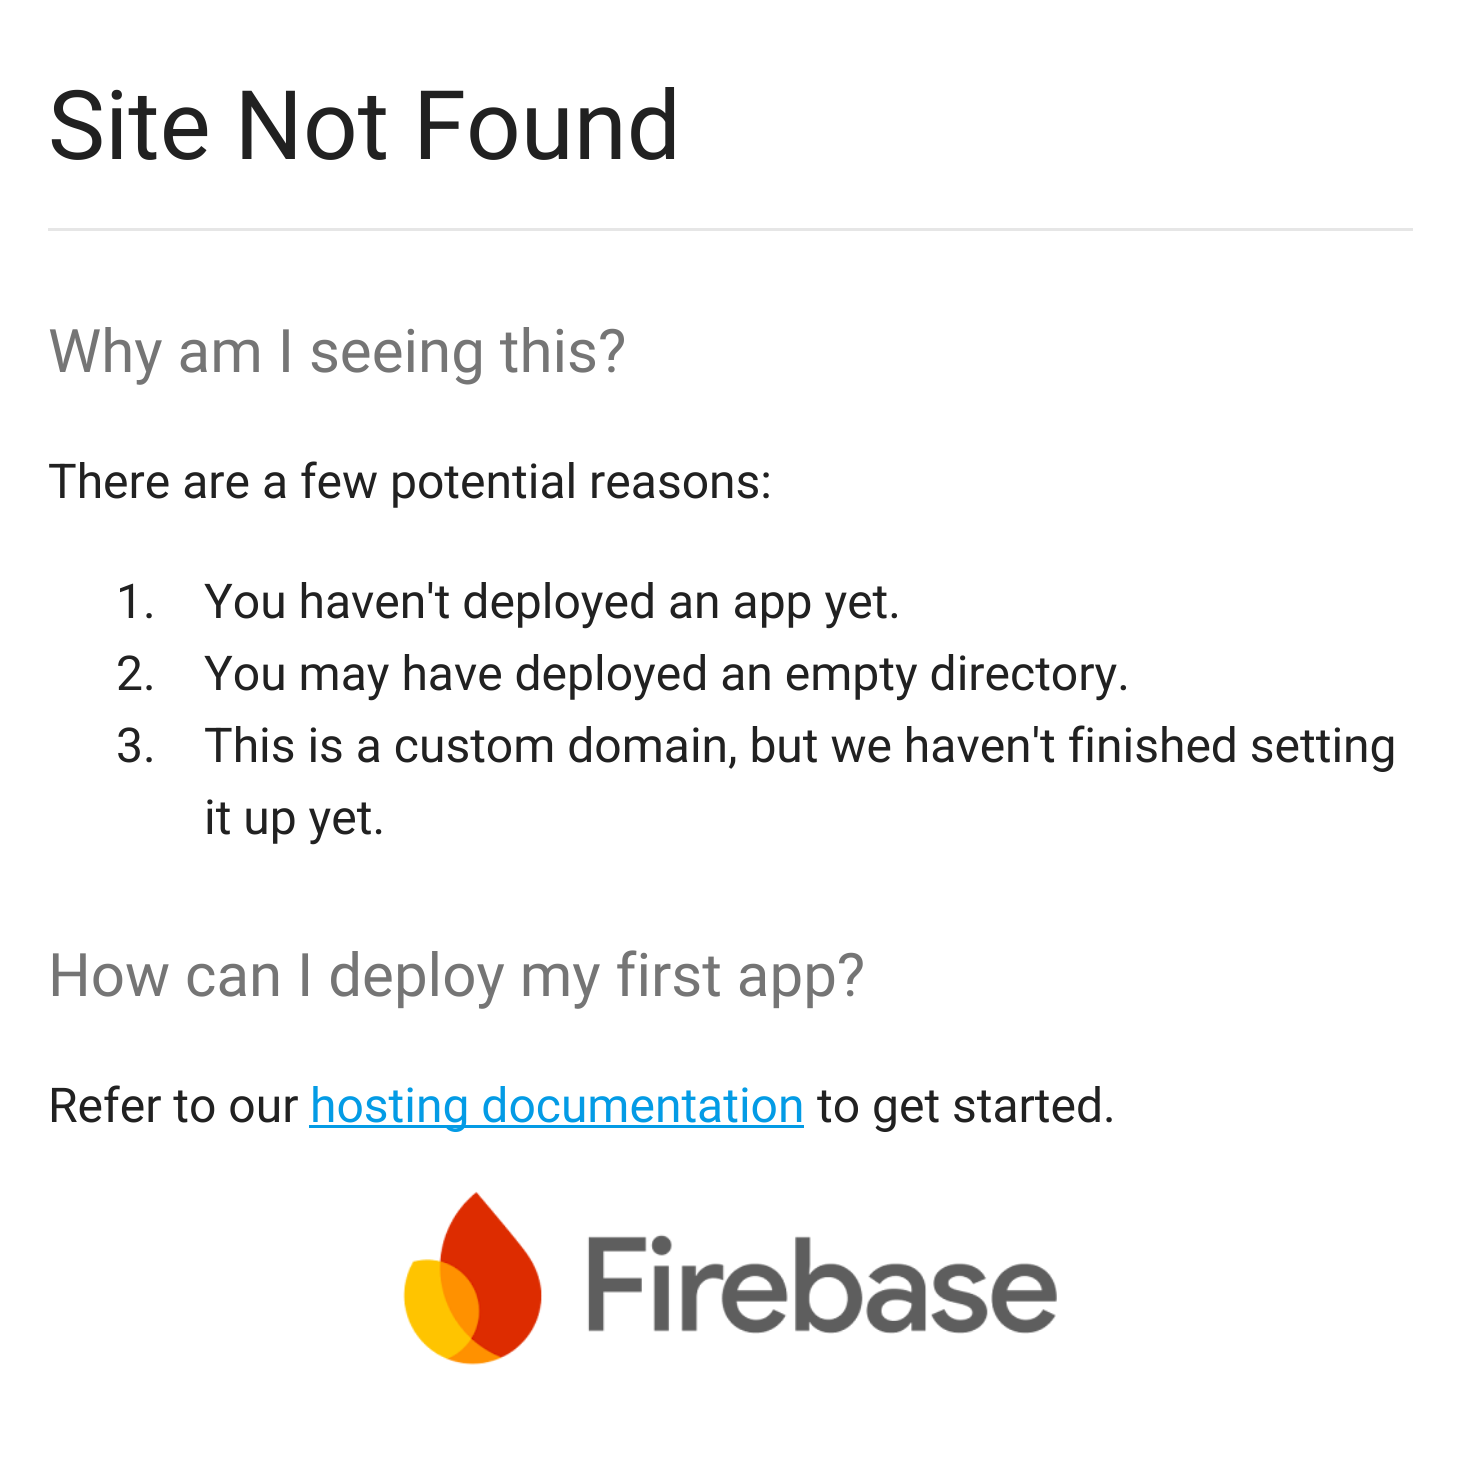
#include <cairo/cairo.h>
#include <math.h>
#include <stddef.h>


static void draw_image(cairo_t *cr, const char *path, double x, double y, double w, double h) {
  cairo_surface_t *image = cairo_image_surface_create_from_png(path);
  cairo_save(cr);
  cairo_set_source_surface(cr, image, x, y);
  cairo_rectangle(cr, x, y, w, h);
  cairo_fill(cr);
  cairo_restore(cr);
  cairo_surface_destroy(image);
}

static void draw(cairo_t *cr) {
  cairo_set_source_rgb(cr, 1, 1, 1);
  cairo_paint(cr);
  cairo_set_source_rgb(cr, 230 / 255.0, 230 / 255.0, 230 / 255.0);
  cairo_rectangle(cr, 48, 228, 1365, 3);
  cairo_fill(cr);
  cairo_set_source_rgb(cr, 3 / 255.0, 155 / 255.0, 229 / 255.0);
  cairo_rectangle(cr, 309, 1125, 495, 3);
  cairo_fill(cr);
  draw_image(cr, "images/1.png", 403, 1191, 654, 174);
  cairo_select_font_face(cr, "Roboto", CAIRO_FONT_SLANT_NORMAL, CAIRO_FONT_WEIGHT_NORMAL);
  cairo_set_font_size(cr, 96);
  cairo_set_source_rgb(cr, 33 / 255.0, 33 / 255.0, 33 / 255.0);
  cairo_move_to(cr, 48, 159);
  cairo_show_text(cr, "Site Not Found");
  cairo_set_font_size(cr, 60);
  cairo_set_source_rgb(cr, 117 / 255.0, 117 / 255.0, 117 / 255.0);
  cairo_move_to(cr, 48, 372);
  cairo_show_text(cr, "Why am I seeing this?");
  cairo_set_font_size(cr, 48);
  cairo_set_source_rgb(cr, 33 / 255.0, 33 / 255.0, 33 / 255.0);
  cairo_move_to(cr, 48, 498);
  cairo_show_text(cr, "There are a few potential reasons:");
  cairo_move_to(cr, 116, 618);
  cairo_show_text(cr, "1.");
  cairo_move_to(cr, 204, 618);
  cairo_show_text(cr, "You haven't deployed an app yet.");
  cairo_move_to(cr, 116, 690);
  cairo_show_text(cr, "2.");
  cairo_move_to(cr, 204, 690);
  cairo_show_text(cr, "You may have deployed an empty directory.");
  cairo_move_to(cr, 116, 762);
  cairo_show_text(cr, "3.");
  cairo_move_to(cr, 204, 762);
  cairo_show_text(cr, "This is a custom domain, but we haven't finished setting");
  cairo_move_to(cr, 204, 834);
  cairo_show_text(cr, "it up yet.");
  cairo_set_font_size(cr, 60);
  cairo_set_source_rgb(cr, 117 / 255.0, 117 / 255.0, 117 / 255.0);
  cairo_move_to(cr, 48, 996);
  cairo_show_text(cr, "How can I deploy my first app?");
  cairo_set_font_size(cr, 48);
  cairo_set_source_rgb(cr, 33 / 255.0, 33 / 255.0, 33 / 255.0);
  cairo_move_to(cr, 48, 1122);
  cairo_show_text(cr, "Refer to our");
  cairo_set_source_rgb(cr, 3 / 255.0, 155 / 255.0, 229 / 255.0);
  cairo_move_to(cr, 310, 1122);
  cairo_show_text(cr, "hosting documentation");
  cairo_set_source_rgb(cr, 33 / 255.0, 33 / 255.0, 33 / 255.0);
  cairo_move_to(cr, 817, 1122);
  cairo_show_text(cr, "to get started.");
}

int main(void) {
  cairo_surface_t *surface = cairo_image_surface_create(CAIRO_FORMAT_RGB24, 1459, 1465);
  cairo_t *cr = cairo_create(surface);
  cairo_font_options_t *options = cairo_font_options_create();
  cairo_font_options_set_hint_metrics(options, CAIRO_HINT_METRICS_OFF);
  cairo_font_options_set_hint_style(options, CAIRO_HINT_STYLE_NONE);
  cairo_set_font_options(cr, options);
  cairo_set_miter_limit(cr, 4);
  draw(cr);
  cairo_surface_write_to_png(surface, "out.png");
  cairo_font_options_destroy(options);
  cairo_destroy(cr);
  cairo_surface_destroy(surface);
  return 0;
}
